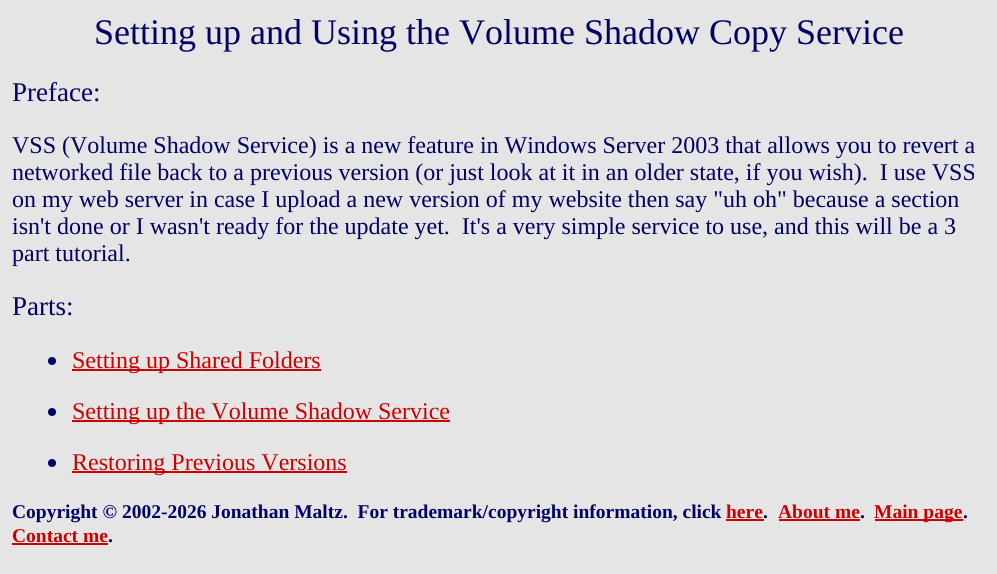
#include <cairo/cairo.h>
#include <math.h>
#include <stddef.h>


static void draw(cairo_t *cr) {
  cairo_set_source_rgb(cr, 229 / 255.0, 229 / 255.0, 229 / 255.0);
  cairo_paint(cr);
  cairo_set_source_rgb(cr, 0, 0, 102 / 255.0);
  cairo_arc(cr, 52, 361, 4, 0, 2 * M_PI);
  cairo_fill(cr);
  cairo_set_source_rgb(cr, 204 / 255.0, 0, 0);
  cairo_rectangle(cr, 72, 369, 249, 2);
  cairo_fill(cr);
  cairo_set_source_rgb(cr, 0, 0, 102 / 255.0);
  cairo_arc(cr, 52, 412, 4, 0, 2 * M_PI);
  cairo_fill(cr);
  cairo_set_source_rgb(cr, 204 / 255.0, 0, 0);
  cairo_rectangle(cr, 72, 420, 378, 2);
  cairo_fill(cr);
  cairo_set_source_rgb(cr, 0, 0, 102 / 255.0);
  cairo_arc(cr, 52, 463, 4, 0, 2 * M_PI);
  cairo_fill(cr);
  cairo_set_source_rgb(cr, 204 / 255.0, 0, 0);
  cairo_rectangle(cr, 72, 471, 275, 2);
  cairo_fill(cr);
  cairo_rectangle(cr, 726, 519, 38, 2);
  cairo_fill(cr);
  cairo_rectangle(cr, 779, 519, 81, 2);
  cairo_fill(cr);
  cairo_rectangle(cr, 875, 519, 88, 2);
  cairo_fill(cr);
  cairo_rectangle(cr, 12, 543, 96, 2);
  cairo_fill(cr);
  cairo_select_font_face(cr, "Liberation Serif", CAIRO_FONT_SLANT_NORMAL, CAIRO_FONT_WEIGHT_NORMAL);
  cairo_set_font_size(cr, 36);
  cairo_set_source_rgb(cr, 0, 0, 102 / 255.0);
  cairo_move_to(cr, 94, 44);
  cairo_show_text(cr, "Setting up and Using the Volume Shadow Copy Service");
  cairo_set_font_size(cr, 27);
  cairo_move_to(cr, 12, 101);
  cairo_show_text(cr, "Preface:");
  cairo_set_font_size(cr, 24);
  cairo_move_to(cr, 12, 153);
  cairo_show_text(cr, "VSS (Volume Shadow Service) is a new feature in Windows Server 2003 that allows you to revert a");
  cairo_move_to(cr, 12, 180);
  cairo_show_text(cr, "networked file back to a previous version (or just look at it in an older state, if you wish).  I use VSS");
  cairo_move_to(cr, 12, 207);
  cairo_show_text(cr, "on my web server in case I upload a new version of my website then say \"uh oh\" because a section");
  cairo_move_to(cr, 12, 234);
  cairo_show_text(cr, "isn't done or I wasn't ready for the update yet.  It's a very simple service to use, and this will be a 3");
  cairo_move_to(cr, 12, 261);
  cairo_show_text(cr, "part tutorial.");
  cairo_set_font_size(cr, 27);
  cairo_move_to(cr, 12, 315);
  cairo_show_text(cr, "Parts:");
  cairo_set_font_size(cr, 24);
  cairo_set_source_rgb(cr, 204 / 255.0, 0, 0);
  cairo_move_to(cr, 72, 368);
  cairo_show_text(cr, "Setting up Shared Folders");
  cairo_move_to(cr, 72, 419);
  cairo_show_text(cr, "Setting up the Volume Shadow Service");
  cairo_move_to(cr, 72, 470);
  cairo_show_text(cr, "Restoring Previous Versions");
  cairo_select_font_face(cr, "Liberation Serif", CAIRO_FONT_SLANT_NORMAL, CAIRO_FONT_WEIGHT_BOLD);
  cairo_set_font_size(cr, 19.5);
  cairo_set_source_rgb(cr, 0, 0, 102 / 255.0);
  cairo_move_to(cr, 12, 518);
  cairo_show_text(cr, "Copyright © 2002-2026 Jonathan Maltz.  For trademark/copyright information, click");
  cairo_set_source_rgb(cr, 204 / 255.0, 0, 0);
  cairo_move_to(cr, 726, 518);
  cairo_show_text(cr, "here");
  cairo_set_source_rgb(cr, 0, 0, 102 / 255.0);
  cairo_move_to(cr, 763, 518);
  cairo_show_text(cr, ".");
  cairo_set_source_rgb(cr, 204 / 255.0, 0, 0);
  cairo_move_to(cr, 778, 518);
  cairo_show_text(cr, "About me");
  cairo_set_source_rgb(cr, 0, 0, 102 / 255.0);
  cairo_move_to(cr, 860, 518);
  cairo_show_text(cr, ".");
  cairo_set_source_rgb(cr, 204 / 255.0, 0, 0);
  cairo_move_to(cr, 874, 518);
  cairo_show_text(cr, "Main page");
  cairo_set_source_rgb(cr, 0, 0, 102 / 255.0);
  cairo_move_to(cr, 963, 518);
  cairo_show_text(cr, ".");
  cairo_set_source_rgb(cr, 204 / 255.0, 0, 0);
  cairo_move_to(cr, 12, 542);
  cairo_show_text(cr, "Contact me");
  cairo_set_source_rgb(cr, 0, 0, 102 / 255.0);
  cairo_move_to(cr, 108, 542);
  cairo_show_text(cr, ".");
}

int main(void) {
  cairo_surface_t *surface = cairo_image_surface_create(CAIRO_FORMAT_RGB24, 997, 574);
  cairo_t *cr = cairo_create(surface);
  cairo_font_options_t *options = cairo_font_options_create();
  cairo_font_options_set_hint_metrics(options, CAIRO_HINT_METRICS_OFF);
  cairo_font_options_set_hint_style(options, CAIRO_HINT_STYLE_NONE);
  cairo_set_font_options(cr, options);
  cairo_set_miter_limit(cr, 4);
  draw(cr);
  cairo_surface_write_to_png(surface, "out.png");
  cairo_font_options_destroy(options);
  cairo_destroy(cr);
  cairo_surface_destroy(surface);
  return 0;
}
